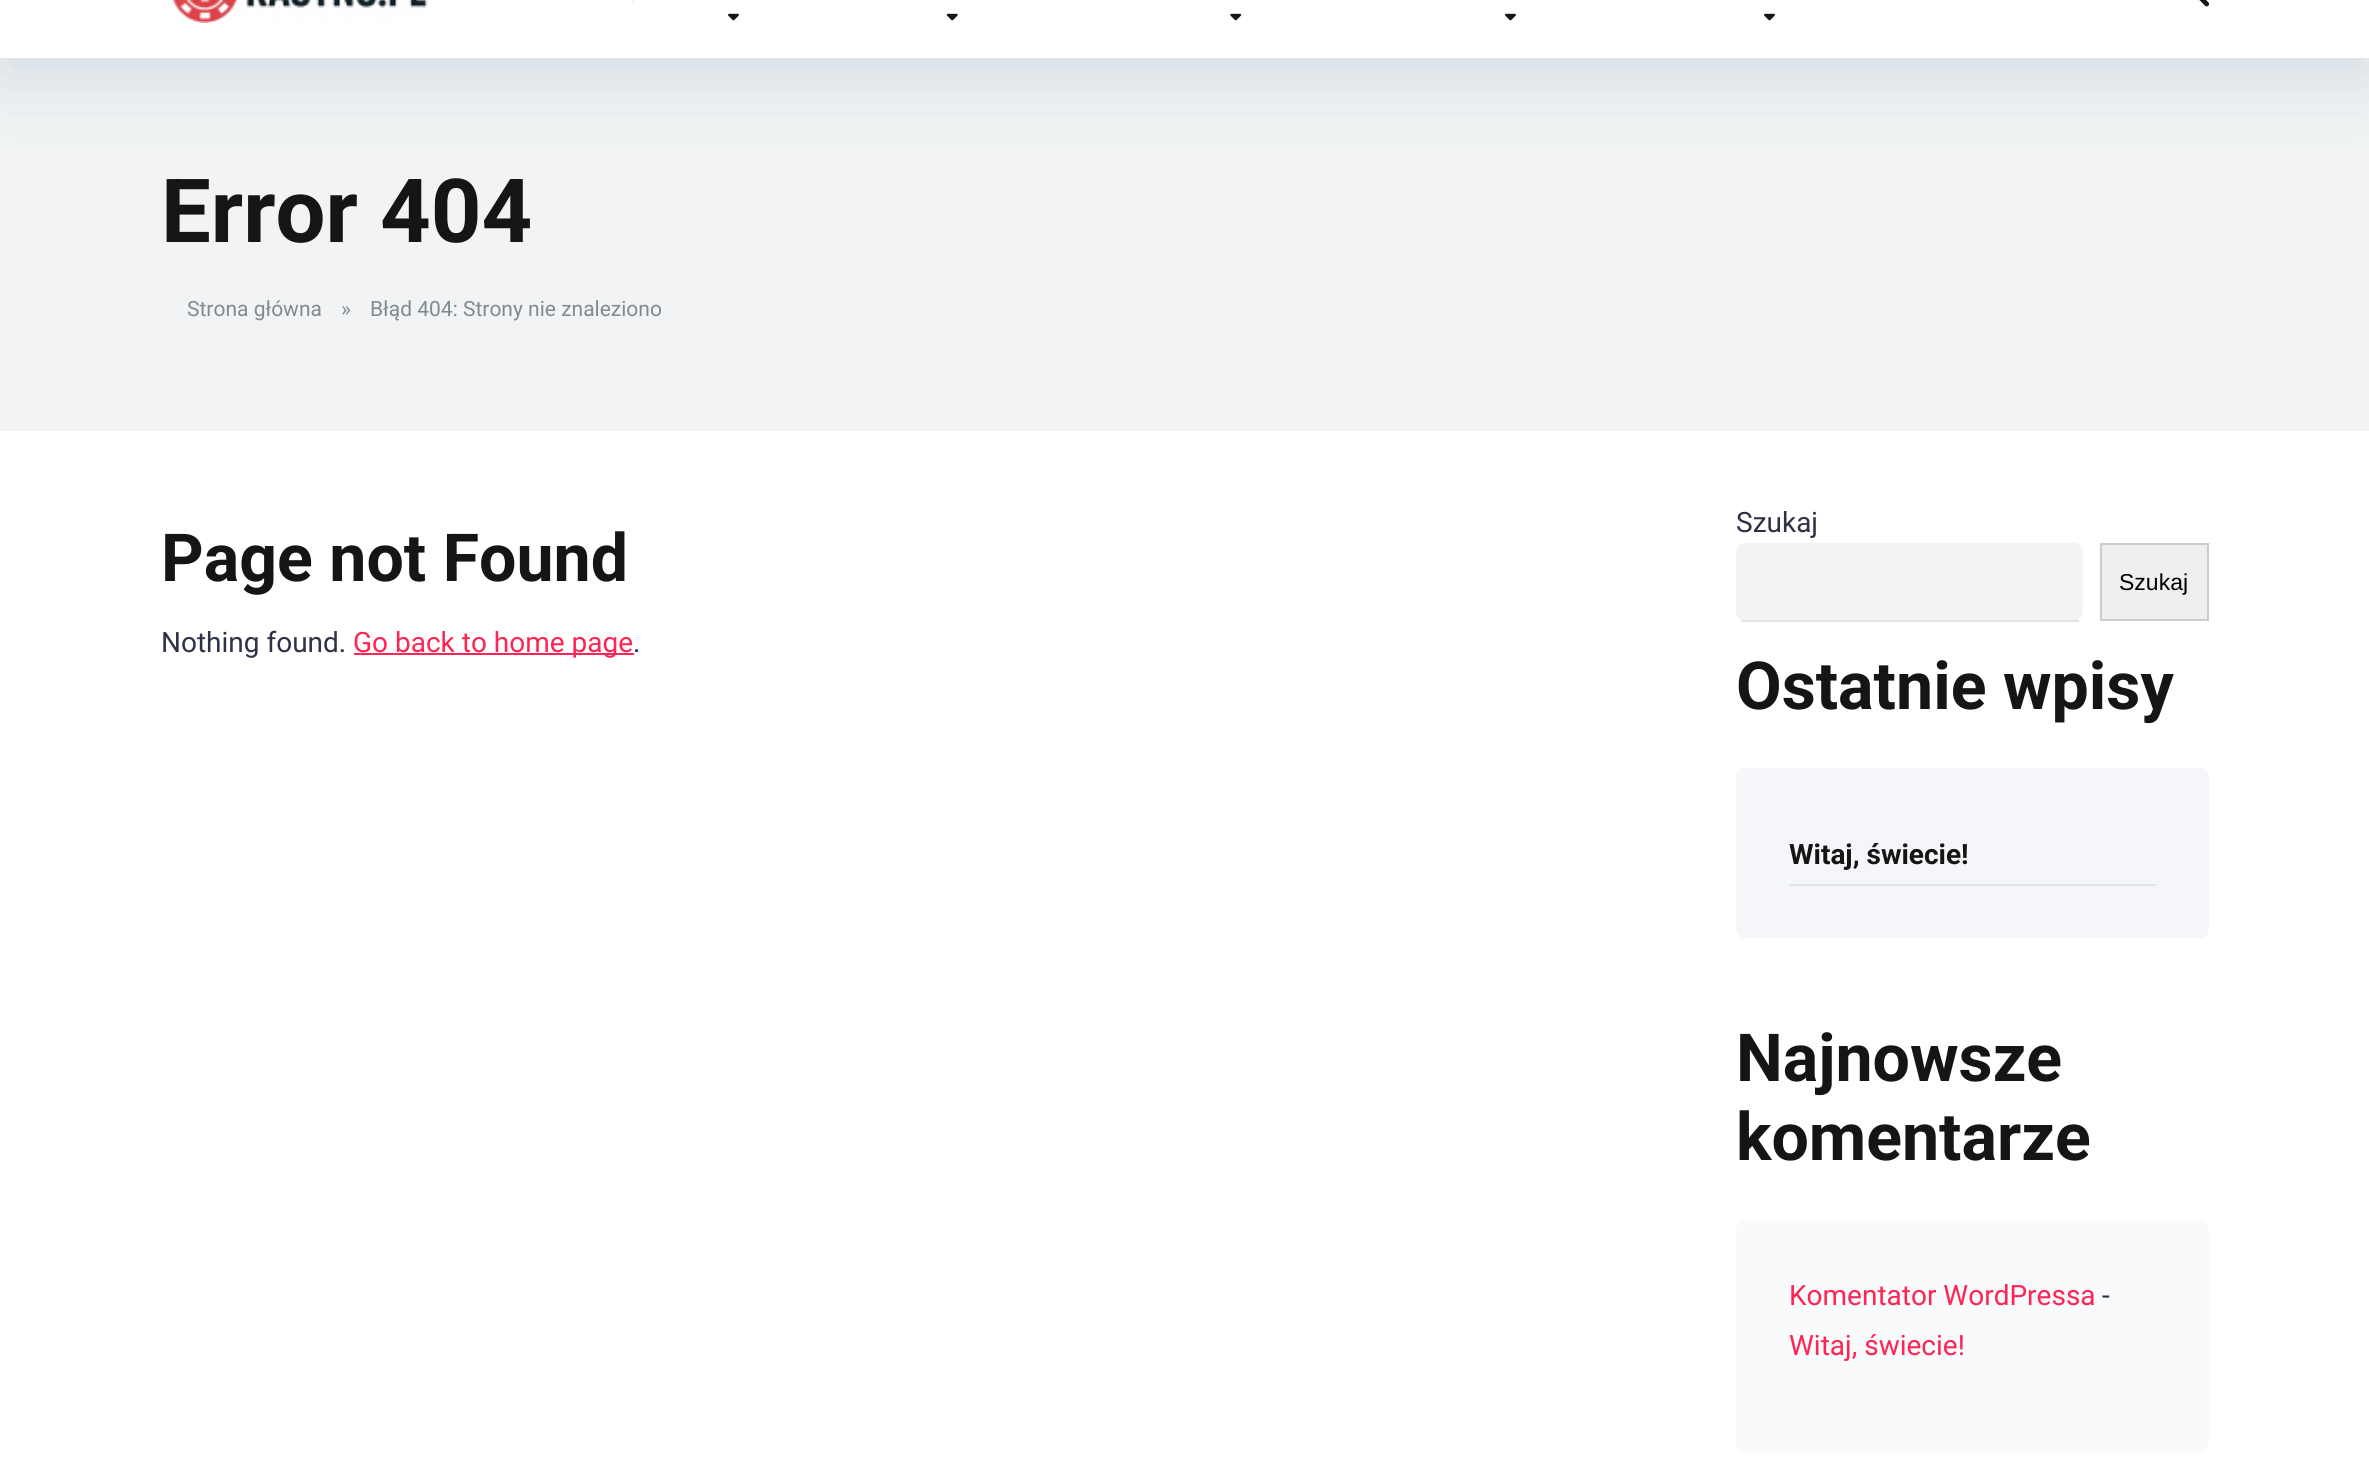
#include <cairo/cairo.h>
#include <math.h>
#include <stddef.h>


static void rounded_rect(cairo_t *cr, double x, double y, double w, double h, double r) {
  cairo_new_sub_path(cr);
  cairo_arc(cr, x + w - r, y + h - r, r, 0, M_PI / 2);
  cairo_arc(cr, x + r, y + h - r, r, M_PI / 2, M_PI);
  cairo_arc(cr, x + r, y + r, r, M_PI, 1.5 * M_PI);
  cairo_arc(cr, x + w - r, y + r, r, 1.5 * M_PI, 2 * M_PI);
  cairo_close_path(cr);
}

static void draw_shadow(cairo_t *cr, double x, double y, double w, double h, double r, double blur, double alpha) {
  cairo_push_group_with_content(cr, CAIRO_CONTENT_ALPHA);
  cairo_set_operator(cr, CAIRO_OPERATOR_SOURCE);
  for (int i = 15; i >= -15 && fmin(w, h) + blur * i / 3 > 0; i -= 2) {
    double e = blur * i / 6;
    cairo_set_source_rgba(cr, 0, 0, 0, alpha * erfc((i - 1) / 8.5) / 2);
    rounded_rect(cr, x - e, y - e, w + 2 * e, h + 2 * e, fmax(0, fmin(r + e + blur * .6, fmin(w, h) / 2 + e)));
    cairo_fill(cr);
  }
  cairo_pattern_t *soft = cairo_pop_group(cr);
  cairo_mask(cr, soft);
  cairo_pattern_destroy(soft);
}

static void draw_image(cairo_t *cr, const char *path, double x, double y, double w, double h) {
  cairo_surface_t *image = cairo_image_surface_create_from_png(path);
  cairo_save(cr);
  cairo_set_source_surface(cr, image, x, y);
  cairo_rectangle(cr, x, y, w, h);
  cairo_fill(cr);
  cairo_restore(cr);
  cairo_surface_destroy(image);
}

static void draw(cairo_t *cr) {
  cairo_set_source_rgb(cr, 1, 1, 1);
  cairo_paint(cr);
  cairo_set_source_rgb(cr, 241 / 255.0, 243 / 255.0, 244 / 255.0);
  cairo_rectangle(cr, 0, 58, 2369, 373);
  cairo_fill(cr);
  cairo_set_source_rgb(cr, 109 / 255.0, 141 / 255.0, 173 / 255.0);
  draw_shadow(cr, 0, -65, 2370, 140, 0, 35, 0.25);
  cairo_set_source_rgb(cr, 1, 1, 1);
  cairo_rectangle(cr, 0, 0, 2369, 58);
  cairo_fill(cr);
  draw_image(cr, "images/1.png", 172, 0, 256, 23);
  cairo_set_source_rgb(cr, 245 / 255.0, 246 / 255.0, 250 / 255.0);
  cairo_rectangle(cr, 632, 0, 2, 5);
  cairo_fill(cr);
  draw_image(cr, "images/2.png", 2199, 0, 10, 7);
  draw_image(cr, "images/3.png", 728, 13, 11, 8);
  draw_image(cr, "images/4.png", 946, 13, 12, 8);
  draw_image(cr, "images/5.png", 1230, 13, 12, 8);
  draw_image(cr, "images/3.png", 1505, 13, 11, 8);
  draw_image(cr, "images/3.png", 1764, 13, 11, 8);
  cairo_set_source_rgb(cr, 1, 36 / 255.0, 83 / 255.0);
  cairo_rectangle(cr, 354, 653, 280, 2);
  cairo_fill(cr);
  cairo_set_source_rgb(cr, 241 / 255.0, 243 / 255.0, 244 / 255.0);
  rounded_rect(cr, 1736, 543, 347, 78, 9);
  cairo_fill(cr);
  cairo_set_source_rgb(cr, 228 / 255.0, 228 / 255.0, 228 / 255.0);
  cairo_rectangle(cr, 1741, 620, 338, 2);
  cairo_fill(cr);
  cairo_set_source_rgb(cr, 239 / 255.0, 239 / 255.0, 239 / 255.0);
  cairo_rectangle(cr, 2101, 544, 107, 76);
  cairo_fill_preserve(cr);
  cairo_set_source_rgb(cr, 204 / 255.0, 204 / 255.0, 204 / 255.0);
  cairo_stroke(cr);
  cairo_set_source_rgb(cr, 245 / 255.0, 246 / 255.0, 250 / 255.0);
  rounded_rect(cr, 1736, 768, 473, 170, 9);
  cairo_fill(cr);
  cairo_set_source_rgb(cr, 223 / 255.0, 230 / 255.0, 233 / 255.0);
  cairo_rectangle(cr, 1789, 884, 367, 2);
  cairo_fill(cr);
  cairo_set_source_rgb(cr, 249 / 255.0, 250 / 255.0, 252 / 255.0);
  rounded_rect(cr, 1736, 1220, 473, 233, 9);
  cairo_fill(cr);
  cairo_select_font_face(cr, "Roboto", CAIRO_FONT_SLANT_NORMAL, CAIRO_FONT_WEIGHT_BOLD);
  cairo_set_font_size(cr, 88.5);
  cairo_set_source_rgb(cr, 21 / 255.0, 21 / 255.0, 21 / 255.0);
  cairo_move_to(cr, 161, 242);
  cairo_show_text(cr, "Error 404");
  cairo_select_font_face(cr, "Roboto", CAIRO_FONT_SLANT_NORMAL, CAIRO_FONT_WEIGHT_NORMAL);
  cairo_set_font_size(cr, 21);
  cairo_set_source_rgb(cr, 127 / 255.0, 140 / 255.0, 141 / 255.0);
  cairo_move_to(cr, 187, 316);
  cairo_show_text(cr, "Strona główna");
  cairo_move_to(cr, 341, 316);
  cairo_show_text(cr, "»");
  cairo_move_to(cr, 370, 316);
  cairo_show_text(cr, "Błąd 404: Strony nie znaleziono");
  cairo_select_font_face(cr, "Roboto", CAIRO_FONT_SLANT_NORMAL, CAIRO_FONT_WEIGHT_BOLD);
  cairo_set_font_size(cr, 66.25);
  cairo_set_source_rgb(cr, 21 / 255.0, 21 / 255.0, 21 / 255.0);
  cairo_move_to(cr, 161, 581);
  cairo_show_text(cr, "Page not Found");
  cairo_select_font_face(cr, "Roboto", CAIRO_FONT_SLANT_NORMAL, CAIRO_FONT_WEIGHT_NORMAL);
  cairo_set_font_size(cr, 28);
  cairo_set_source_rgb(cr, 46 / 255.0, 50 / 255.0, 70 / 255.0);
  cairo_move_to(cr, 161, 652);
  cairo_show_text(cr, "Nothing found.");
  cairo_set_source_rgb(cr, 1, 36 / 255.0, 83 / 255.0);
  cairo_move_to(cr, 353, 652);
  cairo_show_text(cr, "Go back to home page");
  cairo_set_source_rgb(cr, 46 / 255.0, 50 / 255.0, 70 / 255.0);
  cairo_move_to(cr, 633, 652);
  cairo_show_text(cr, ".");
  cairo_move_to(cr, 1736, 532);
  cairo_show_text(cr, "Szukaj");
  cairo_select_font_face(cr, "Liberation Sans", CAIRO_FONT_SLANT_NORMAL, CAIRO_FONT_WEIGHT_NORMAL);
  cairo_set_font_size(cr, 23);
  cairo_set_source_rgb(cr, 0, 0, 0);
  cairo_move_to(cr, 2119, 590);
  cairo_show_text(cr, "Szukaj");
  cairo_select_font_face(cr, "Roboto", CAIRO_FONT_SLANT_NORMAL, CAIRO_FONT_WEIGHT_BOLD);
  cairo_set_font_size(cr, 66.25);
  cairo_set_source_rgb(cr, 21 / 255.0, 21 / 255.0, 21 / 255.0);
  cairo_move_to(cr, 1736, 709);
  cairo_show_text(cr, "Ostatnie wpisy");
  cairo_set_font_size(cr, 28);
  cairo_move_to(cr, 1789, 864);
  cairo_show_text(cr, "Witaj, świecie!");
  cairo_set_font_size(cr, 66.25);
  cairo_move_to(cr, 1736, 1081);
  cairo_show_text(cr, "Najnowsze");
  cairo_move_to(cr, 1736, 1160);
  cairo_show_text(cr, "komentarze");
  cairo_select_font_face(cr, "Roboto", CAIRO_FONT_SLANT_NORMAL, CAIRO_FONT_WEIGHT_NORMAL);
  cairo_set_font_size(cr, 28);
  cairo_set_source_rgb(cr, 1, 36 / 255.0, 83 / 255.0);
  cairo_move_to(cr, 1789, 1305);
  cairo_show_text(cr, "Komentator WordPressa");
  cairo_set_source_rgb(cr, 46 / 255.0, 50 / 255.0, 70 / 255.0);
  cairo_move_to(cr, 2102, 1305);
  cairo_show_text(cr, "-");
  cairo_set_source_rgb(cr, 1, 36 / 255.0, 83 / 255.0);
  cairo_move_to(cr, 1789, 1355);
  cairo_show_text(cr, "Witaj, świecie!");
}

int main(void) {
  cairo_surface_t *surface = cairo_image_surface_create(CAIRO_FORMAT_RGB24, 2369, 1464);
  cairo_t *cr = cairo_create(surface);
  cairo_font_options_t *options = cairo_font_options_create();
  cairo_font_options_set_hint_metrics(options, CAIRO_HINT_METRICS_OFF);
  cairo_font_options_set_hint_style(options, CAIRO_HINT_STYLE_NONE);
  cairo_set_font_options(cr, options);
  cairo_set_miter_limit(cr, 4);
  draw(cr);
  cairo_surface_write_to_png(surface, "out.png");
  cairo_font_options_destroy(options);
  cairo_destroy(cr);
  cairo_surface_destroy(surface);
  return 0;
}
